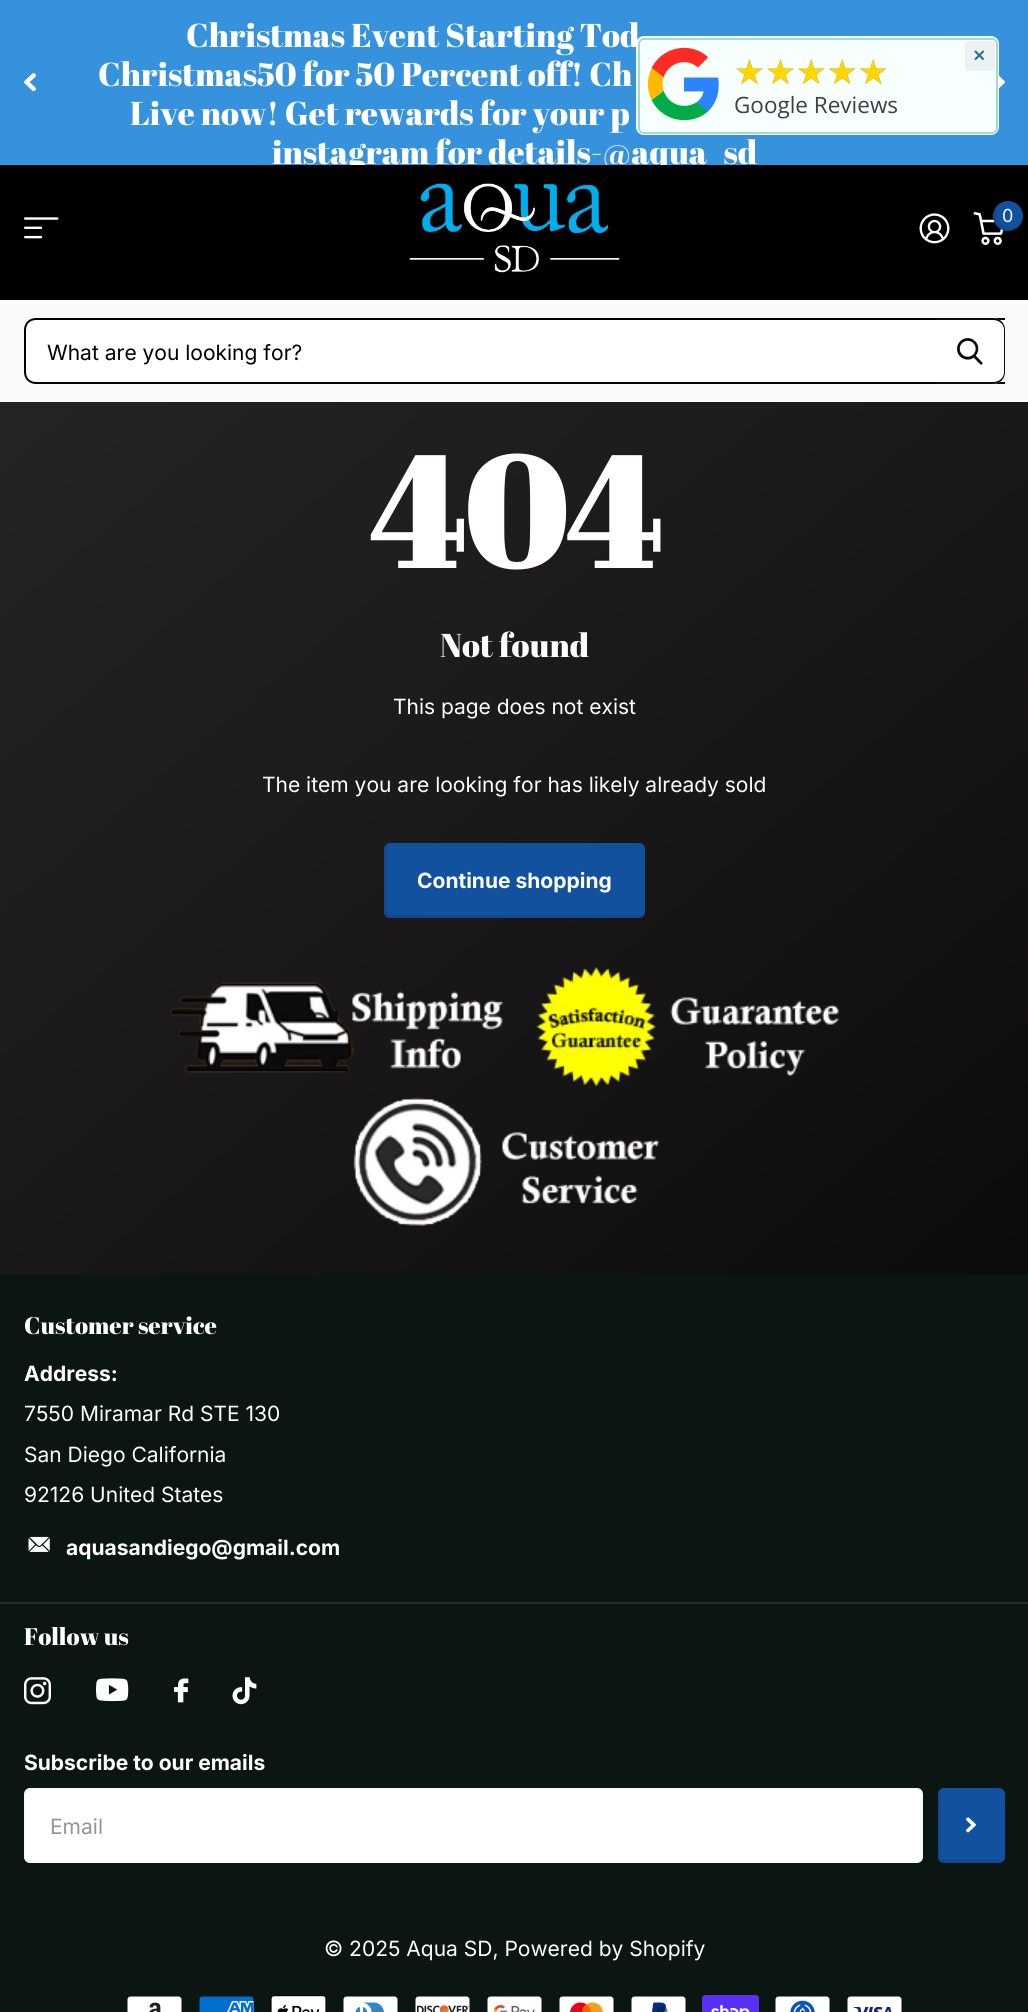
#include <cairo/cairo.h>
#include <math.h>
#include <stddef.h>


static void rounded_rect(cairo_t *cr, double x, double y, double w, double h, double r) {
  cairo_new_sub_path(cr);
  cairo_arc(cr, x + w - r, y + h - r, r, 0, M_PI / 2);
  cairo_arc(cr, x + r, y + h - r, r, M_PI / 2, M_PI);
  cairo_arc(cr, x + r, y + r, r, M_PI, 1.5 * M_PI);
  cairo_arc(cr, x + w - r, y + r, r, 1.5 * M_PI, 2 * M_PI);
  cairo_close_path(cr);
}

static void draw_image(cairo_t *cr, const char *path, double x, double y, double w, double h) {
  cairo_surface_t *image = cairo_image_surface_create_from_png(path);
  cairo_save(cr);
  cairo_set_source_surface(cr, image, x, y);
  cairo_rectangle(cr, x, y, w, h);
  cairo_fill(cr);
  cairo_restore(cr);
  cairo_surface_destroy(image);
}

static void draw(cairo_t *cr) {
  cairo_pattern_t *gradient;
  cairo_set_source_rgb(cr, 1, 1, 1);
  cairo_paint(cr);
  cairo_set_source_rgb(cr, 55 / 255.0, 146 / 255.0, 222 / 255.0);
  cairo_rectangle(cr, 0, 0, 1028, 165);
  cairo_fill(cr);
  draw_image(cr, "images/1.png", 24, 73, 12, 19);
  draw_image(cr, "images/2.png", 999, 76, 6, 13);
  cairo_set_source_rgb(cr, 250 / 255.0, 250 / 255.0, 250 / 255.0);
  cairo_rectangle(cr, 0, 300, 1028, 102);
  cairo_fill(cr);
  cairo_set_source_rgb(cr, 1, 1, 1);
  cairo_new_path(cr);
  cairo_move_to(cr, 36, 318);
  cairo_line_to(cr, 1005, 318);
  cairo_line_to(cr, 1005, 384);
  cairo_line_to(cr, 36, 384);
  cairo_curve_to(cr, 29.5, 384, 24, 378.5, 24, 372);
  cairo_line_to(cr, 24, 330);
  cairo_curve_to(cr, 24, 323.5, 29.5, 318, 36, 318);
  cairo_close_path(cr);
  cairo_fill(cr);
  cairo_set_source_rgb(cr, 0, 0, 0);
  cairo_set_fill_rule(cr, CAIRO_FILL_RULE_EVEN_ODD);
  cairo_new_path(cr);
  cairo_move_to(cr, 36, 318);
  cairo_line_to(cr, 1005, 318);
  cairo_line_to(cr, 1005, 384);
  cairo_line_to(cr, 36, 384);
  cairo_curve_to(cr, 29, 384, 24, 379, 24, 372);
  cairo_line_to(cr, 24, 330);
  cairo_curve_to(cr, 24, 323, 29, 318, 36, 318);
  cairo_close_path(cr);
  cairo_move_to(cr, 36, 320);
  cairo_line_to(cr, 1005, 320);
  cairo_line_to(cr, 1005, 382);
  cairo_line_to(cr, 36, 382);
  cairo_curve_to(cr, 30, 382, 26, 378, 26, 372);
  cairo_line_to(cr, 26, 330);
  cairo_curve_to(cr, 26, 324, 30, 320, 36, 320);
  cairo_close_path(cr);
  cairo_fill(cr);
  cairo_set_source_rgb(cr, 1, 1, 1);
  cairo_new_path(cr);
  cairo_move_to(cr, 936, 318);
  cairo_line_to(cr, 993, 318);
  cairo_curve_to(cr, 999.5, 318, 1005, 323.5, 1005, 330);
  cairo_line_to(cr, 1005, 372);
  cairo_curve_to(cr, 1005, 378.5, 999.5, 384, 993, 384);
  cairo_line_to(cr, 936, 384);
  cairo_close_path(cr);
  cairo_fill(cr);
  cairo_set_source_rgb(cr, 13 / 255.0, 12 / 255.0, 12 / 255.0);
  cairo_new_path(cr);
  cairo_move_to(cr, 936, 318);
  cairo_line_to(cr, 993, 318);
  cairo_curve_to(cr, 1000, 318, 1005, 323, 1005, 330);
  cairo_line_to(cr, 1005, 372);
  cairo_curve_to(cr, 1005, 379, 1000, 384, 993, 384);
  cairo_line_to(cr, 936, 384);
  cairo_close_path(cr);
  cairo_move_to(cr, 936, 320);
  cairo_line_to(cr, 993, 320);
  cairo_curve_to(cr, 999, 320, 1004, 324, 1004, 330);
  cairo_line_to(cr, 1004, 372);
  cairo_curve_to(cr, 1004, 378, 999, 382, 993, 382);
  cairo_line_to(cr, 936, 382);
  cairo_close_path(cr);
  cairo_fill(cr);
  draw_image(cr, "images/7.png", 957, 338, 26, 27);
  gradient = cairo_pattern_create_linear(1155, 1993, -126, 465);
  cairo_pattern_add_color_stop_rgba(gradient, 0.04, 2 / 255.0, 2 / 255.0, 2 / 255.0, 1);
  cairo_pattern_add_color_stop_rgba(gradient, 1, 39 / 255.0, 36 / 255.0, 36 / 255.0, 1);
  cairo_set_source(cr, gradient);
  cairo_pattern_destroy(gradient);
  cairo_rectangle(cr, 0, 402, 1028, 873);
  cairo_fill(cr);
  cairo_set_source_rgb(cr, 18 / 255.0, 81 / 255.0, 158 / 255.0);
  rounded_rect(cr, 384, 843, 261, 75, 6);
  cairo_fill(cr);
  cairo_set_source_rgba(cr, 0, 0, 0, 0.1);
  cairo_set_fill_rule(cr, CAIRO_FILL_RULE_WINDING);
  cairo_new_path(cr);
  cairo_move_to(cr, 388, 843);
  cairo_curve_to(cr, 386, 844, 384, 847, 384, 849);
  cairo_line_to(cr, 384, 912);
  cairo_curve_to(cr, 384, 915, 387, 918, 390, 918);
  cairo_line_to(cr, 639, 918);
  cairo_curve_to(cr, 641, 918, 644, 916, 645, 914);
  cairo_line_to(cr, 642, 915);
  cairo_line_to(cr, 393, 915);
  cairo_curve_to(cr, 390, 915, 387, 912, 387, 909);
  cairo_line_to(cr, 387, 846);
  cairo_close_path(cr);
  cairo_fill(cr);
  draw_image(cr, "images/8.png", 169, 982, 334, 91);
  draw_image(cr, "images/9.png", 536, 967, 303, 120);
  draw_image(cr, "images/10.png", 353, 1097, 306, 129);
  cairo_set_source_rgb(cr, 11 / 255.0, 22 / 255.0, 19 / 255.0);
  cairo_rectangle(cr, 0, 1275, 1028, 737);
  cairo_fill(cr);
  draw_image(cr, "images/11.png", 28, 1536, 22, 16);
  cairo_set_source_rgb(cr, 35 / 255.0, 45 / 255.0, 43 / 255.0);
  cairo_rectangle(cr, 0, 1602, 1028, 2);
  cairo_fill(cr);
  draw_image(cr, "images/12.png", 24, 1677, 27, 28);
  draw_image(cr, "images/13.png", 96, 1678, 33, 24);
  draw_image(cr, "images/14.png", 174, 1678, 15, 25);
  draw_image(cr, "images/15.png", 232, 1677, 25, 28);
  cairo_set_source_rgb(cr, 1, 1, 1);
  rounded_rect(cr, 25, 1789, 897, 73, 5);
  cairo_fill_preserve(cr);
  cairo_set_source_rgb(cr, 250 / 255.0, 250 / 255.0, 250 / 255.0);
  cairo_stroke(cr);
  cairo_set_source_rgb(cr, 18 / 255.0, 81 / 255.0, 158 / 255.0);
  rounded_rect(cr, 938, 1788, 67, 75, 6);
  cairo_fill(cr);
  cairo_set_source_rgba(cr, 0, 0, 0, 0.1);
  cairo_new_path(cr);
  cairo_move_to(cr, 940, 1789);
  cairo_curve_to(cr, 939, 1790, 938, 1792, 938, 1794);
  cairo_line_to(cr, 938, 1857);
  cairo_curve_to(cr, 938, 1860, 941, 1863, 944, 1863);
  cairo_line_to(cr, 999, 1863);
  cairo_curve_to(cr, 1001, 1863, 1004, 1861, 1005, 1859);
  cairo_line_to(cr, 1002, 1860);
  cairo_line_to(cr, 946, 1860);
  cairo_curve_to(cr, 943, 1860, 940, 1857, 940, 1854);
  cairo_close_path(cr);
  cairo_fill(cr);
  draw_image(cr, "images/16.png", 966, 1817, 10, 16);
  draw_image(cr, "images/17.png", 127, 1996, 55, 16);
  draw_image(cr, "images/18.png", 199, 1996, 55, 16);
  draw_image(cr, "images/19.png", 270, 1995, 57, 17);
  draw_image(cr, "images/20.png", 343, 1996, 55, 16);
  draw_image(cr, "images/21.png", 415, 1996, 55, 16);
  draw_image(cr, "images/22.png", 487, 1996, 55, 16);
  draw_image(cr, "images/23.png", 559, 1996, 55, 16);
  draw_image(cr, "images/24.png", 631, 1996, 55, 16);
  draw_image(cr, "images/25.png", 702, 1995, 57, 17);
  draw_image(cr, "images/26.png", 775, 1996, 55, 16);
  draw_image(cr, "images/27.png", 847, 1996, 55, 16);
  cairo_select_font_face(cr, "Abril Fatface", CAIRO_FONT_SLANT_NORMAL, CAIRO_FONT_WEIGHT_NORMAL);
  cairo_set_font_size(cr, 33);
  cairo_set_source_rgb(cr, 1, 1, 1);
  cairo_move_to(cr, 186, 47);
  cairo_show_text(cr, "Christmas Event Starting Tod");
  cairo_move_to(cr, 98, 86);
  cairo_show_text(cr, "Christmas50 for 50 Percent off! Ch");
  cairo_move_to(cr, 130, 125);
  cairo_show_text(cr, "Live now! Get rewards for your p");
  cairo_move_to(cr, 272, 164);
  cairo_show_text(cr, "instagram for details-@aqua_sd");
  cairo_set_source_rgb(cr, 0, 0, 0);
  cairo_rectangle(cr, 0, 165, 1028, 135);
  cairo_fill(cr);
  draw_image(cr, "images/3.png", 409, 183, 211, 90);
  draw_image(cr, "images/4.png", 919, 213, 31, 31);
  draw_image(cr, "images/5.png", 973, 212, 31, 33);
  cairo_set_source_rgb(cr, 18 / 255.0, 81 / 255.0, 158 / 255.0);
  cairo_arc(cr, 1008, 216, 15, 0, 2 * M_PI);
  cairo_fill(cr);
  cairo_set_source_rgba(cr, 0, 0, 0, 0.1);
  cairo_new_path(cr);
  cairo_move_to(cr, 1019.5, 225.5);
  cairo_curve_to(cr, 1017, 227, 1014.5, 228, 1011, 228);
  cairo_curve_to(cr, 997, 228, 993, 213.5, 998.5, 204.5);
  cairo_curve_to(cr, 992, 210, 991, 220.5, 997.5, 226.5);
  cairo_curve_to(cr, 1003.5, 233, 1014, 232.5, 1019.5, 225.5);
  cairo_close_path(cr);
  cairo_fill(cr);
  cairo_select_font_face(cr, "Inter", CAIRO_FONT_SLANT_NORMAL, CAIRO_FONT_WEIGHT_NORMAL);
  cairo_set_font_size(cr, 18);
  cairo_set_source_rgb(cr, 1, 1, 1);
  cairo_move_to(cr, 1002, 222);
  cairo_show_text(cr, "0");
  draw_image(cr, "images/6.png", 24, 217, 35, 22);
  cairo_set_font_size(cr, 21);
  cairo_set_source_rgb(cr, 0, 0, 0);
  cairo_move_to(cr, 47, 360);
  cairo_show_text(cr, "What are you looking for?");
  cairo_select_font_face(cr, "Abril Fatface", CAIRO_FONT_SLANT_NORMAL, CAIRO_FONT_WEIGHT_BOLD);
  cairo_set_font_size(cr, 155);
  cairo_set_source_rgb(cr, 1, 1, 1);
  cairo_move_to(cr, 370, 568);
  cairo_show_text(cr, "404");
  cairo_select_font_face(cr, "Abril Fatface", CAIRO_FONT_SLANT_NORMAL, CAIRO_FONT_WEIGHT_NORMAL);
  cairo_set_font_size(cr, 33);
  cairo_move_to(cr, 440, 657);
  cairo_show_text(cr, "Not found");
  cairo_select_font_face(cr, "Inter", CAIRO_FONT_SLANT_NORMAL, CAIRO_FONT_WEIGHT_NORMAL);
  cairo_set_font_size(cr, 21);
  cairo_move_to(cr, 393, 714);
  cairo_show_text(cr, "This page does not exist");
  cairo_move_to(cr, 262, 792);
  cairo_show_text(cr, "The item you are looking for has likely already sold");
  cairo_select_font_face(cr, "Inter", CAIRO_FONT_SLANT_NORMAL, CAIRO_FONT_WEIGHT_BOLD);
  cairo_move_to(cr, 417, 888);
  cairo_show_text(cr, "Continue shopping");
  cairo_select_font_face(cr, "Abril Fatface", CAIRO_FONT_SLANT_NORMAL, CAIRO_FONT_WEIGHT_NORMAL);
  cairo_set_font_size(cr, 24);
  cairo_move_to(cr, 24, 1334);
  cairo_show_text(cr, "Customer service");
  cairo_select_font_face(cr, "Inter", CAIRO_FONT_SLANT_NORMAL, CAIRO_FONT_WEIGHT_BOLD);
  cairo_set_font_size(cr, 21);
  cairo_move_to(cr, 24, 1381);
  cairo_show_text(cr, "Address:");
  cairo_select_font_face(cr, "Inter", CAIRO_FONT_SLANT_NORMAL, CAIRO_FONT_WEIGHT_NORMAL);
  cairo_move_to(cr, 24, 1421);
  cairo_show_text(cr, "7550 Miramar Rd STE 130");
  cairo_move_to(cr, 24, 1462);
  cairo_show_text(cr, "San Diego California");
  cairo_move_to(cr, 24, 1502);
  cairo_show_text(cr, "92126 United States");
  cairo_select_font_face(cr, "Inter", CAIRO_FONT_SLANT_NORMAL, CAIRO_FONT_WEIGHT_BOLD);
  cairo_move_to(cr, 66, 1555);
  cairo_show_text(cr, "aquasandiego@gmail.com");
  cairo_select_font_face(cr, "Abril Fatface", CAIRO_FONT_SLANT_NORMAL, CAIRO_FONT_WEIGHT_NORMAL);
  cairo_set_font_size(cr, 24);
  cairo_move_to(cr, 24, 1645);
  cairo_show_text(cr, "Follow us");
  cairo_select_font_face(cr, "Inter", CAIRO_FONT_SLANT_NORMAL, CAIRO_FONT_WEIGHT_BOLD);
  cairo_set_font_size(cr, 21);
  cairo_move_to(cr, 24, 1770);
  cairo_show_text(cr, "Subscribe to our emails");
  cairo_select_font_face(cr, "Inter", CAIRO_FONT_SLANT_NORMAL, CAIRO_FONT_WEIGHT_NORMAL);
  cairo_set_source_rgb(cr, 149 / 255.0, 149 / 255.0, 149 / 255.0);
  cairo_move_to(cr, 50, 1834);
  cairo_show_text(cr, "Email");
  cairo_set_source_rgb(cr, 1, 1, 1);
  cairo_move_to(cr, 324, 1956);
  cairo_show_text(cr, "© 2025 Aqua SD, Powered by Shopify");
  cairo_set_source_rgb(cr, 248 / 255.0, 1, 1);
  rounded_rect(cr, 636, 36, 363, 99, 8);
  cairo_fill(cr);
  rounded_rect(cr, 639, 39, 358, 94, 5);
  cairo_set_source_rgb(cr, 169 / 255.0, 213 / 255.0, 222 / 255.0);
  cairo_stroke(cr);
  cairo_set_source_rgb(cr, 236 / 255.0, 242 / 255.0, 242 / 255.0);
  rounded_rect(cr, 965, 41, 30, 30, 3);
  cairo_fill(cr);
  cairo_select_font_face(cr, "Open Sans", CAIRO_FONT_SLANT_NORMAL, CAIRO_FONT_WEIGHT_BOLD);
  cairo_set_source_rgb(cr, 39 / 255.0, 111 / 255.0, 134 / 255.0);
  cairo_move_to(cr, 973, 63);
  cairo_show_text(cr, "×");
  draw_image(cr, "images/28.png", 647, 47, 72, 74);
  cairo_select_font_face(cr, "DejaVu Sans", CAIRO_FONT_SLANT_NORMAL, CAIRO_FONT_WEIGHT_NORMAL);
  cairo_set_font_size(cr, 34.5);
  cairo_set_source_rgb(cr, 128 / 255.0, 128 / 255.0, 128 / 255.0);
  cairo_move_to(cr, 734, 84);
  cairo_show_text(cr, "★★★★★");
  cairo_set_source_rgb(cr, 1, 215 / 255.0, 0);
  cairo_move_to(cr, 734, 84);
  cairo_show_text(cr, "★★★★★");
  cairo_select_font_face(cr, "Open Sans", CAIRO_FONT_SLANT_NORMAL, CAIRO_FONT_WEIGHT_NORMAL);
  cairo_set_font_size(cr, 22.5);
  cairo_set_source_rgb(cr, 64 / 255.0, 64 / 255.0, 64 / 255.0);
  cairo_move_to(cr, 734, 113);
  cairo_show_text(cr, "Google Reviews");
}

int main(void) {
  cairo_surface_t *surface = cairo_image_surface_create(CAIRO_FORMAT_RGB24, 1028, 2012);
  cairo_t *cr = cairo_create(surface);
  cairo_font_options_t *options = cairo_font_options_create();
  cairo_font_options_set_hint_metrics(options, CAIRO_HINT_METRICS_OFF);
  cairo_font_options_set_hint_style(options, CAIRO_HINT_STYLE_NONE);
  cairo_set_font_options(cr, options);
  cairo_set_miter_limit(cr, 4);
  draw(cr);
  cairo_surface_write_to_png(surface, "out.png");
  cairo_font_options_destroy(options);
  cairo_destroy(cr);
  cairo_surface_destroy(surface);
  return 0;
}
